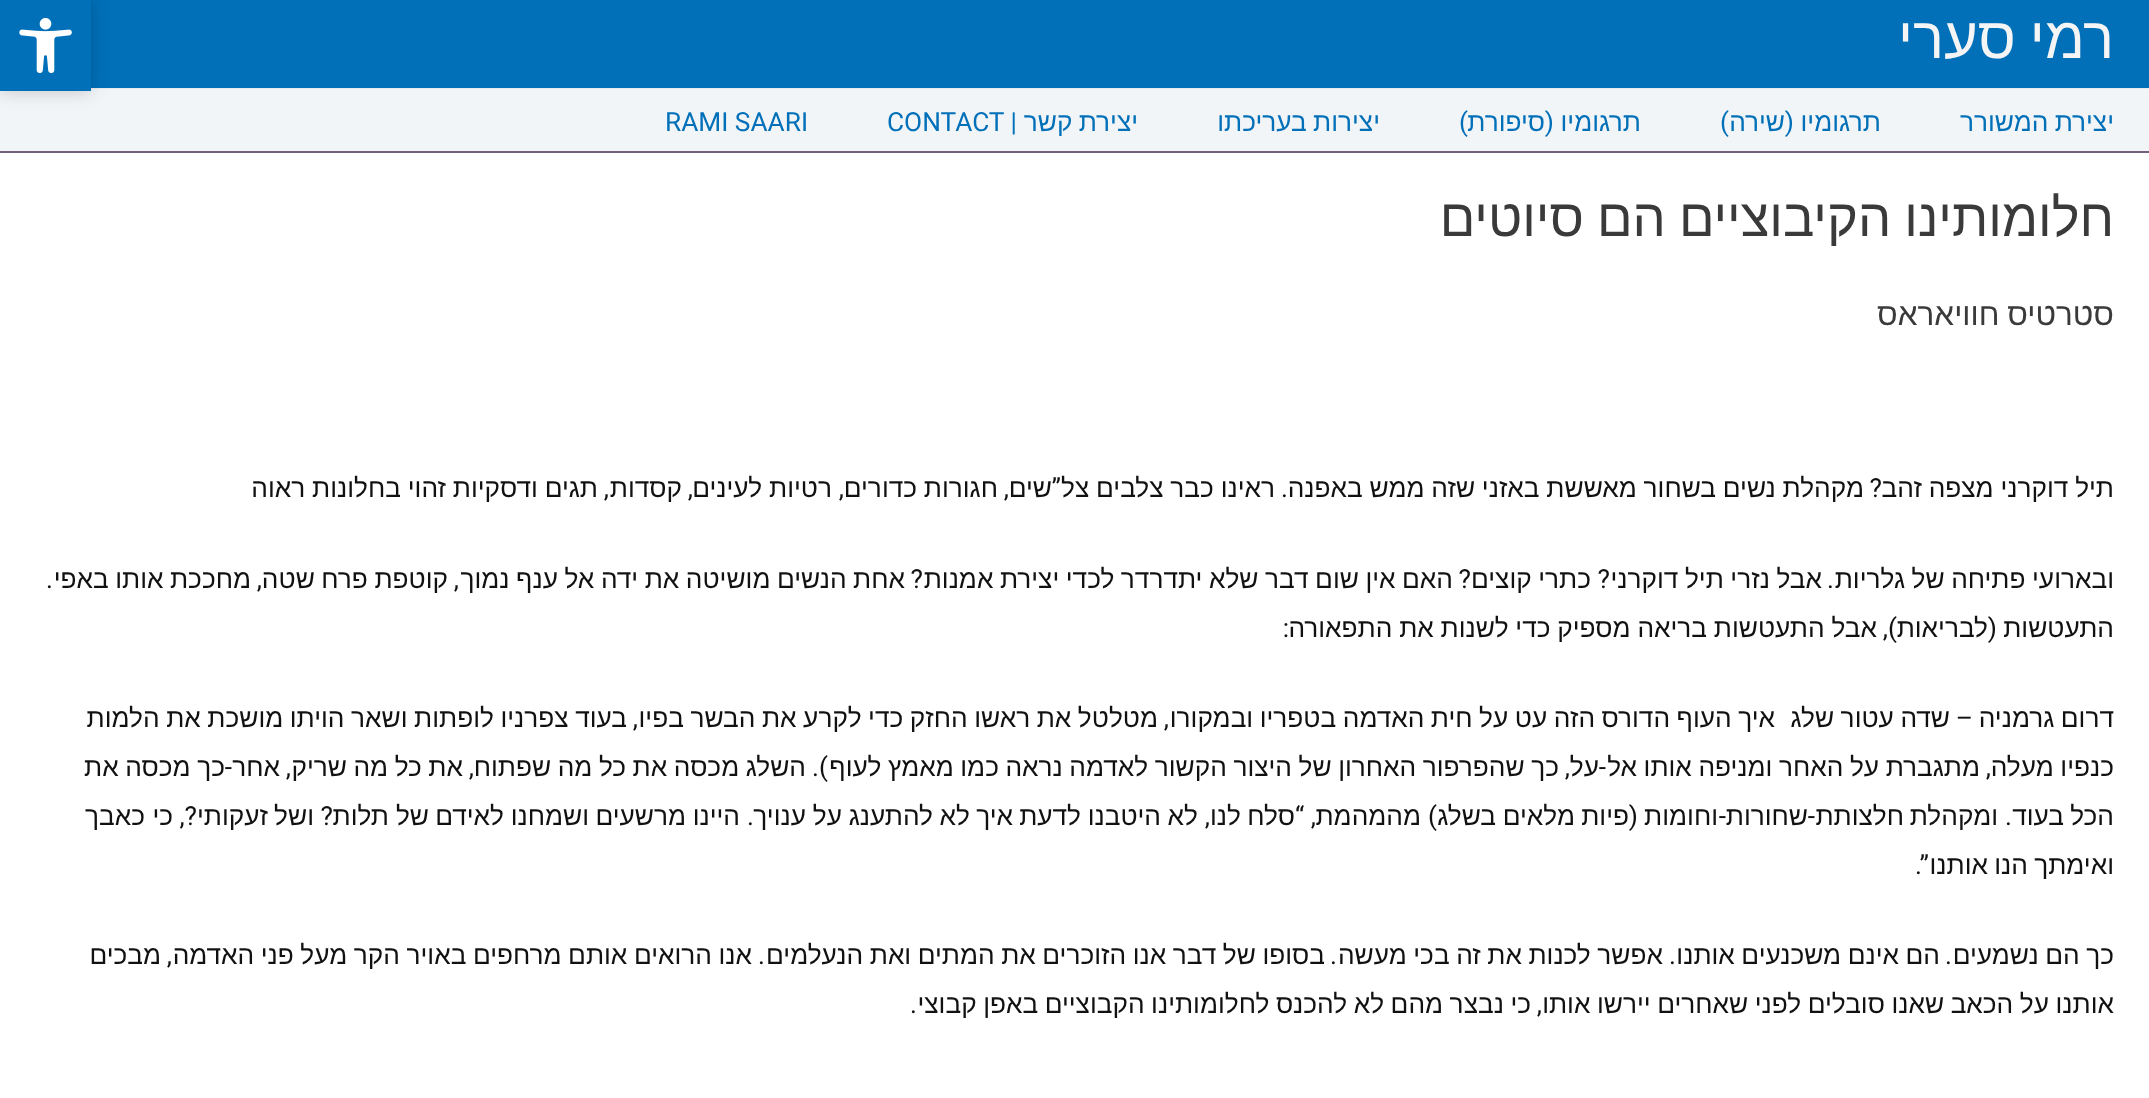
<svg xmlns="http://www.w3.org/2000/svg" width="2149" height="1098">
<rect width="100%" height="100%" fill="#fff"/>
<rect x="91" width="2058" height="88" fill="#0170b9"/>
<rect x="91" y="88" width="2058" height="1" fill="#eaeaea"/>
<rect y="89" width="2149" height="62" fill="#f2f5f7"/>
<rect width="91" height="91" fill="#00000033" filter="blur(9px)"/>
<rect width="91" height="91" fill="#0170b9"/>
<image x="19" y="18" width="53" height="56" href="media/1.png"/>
<text x="2114" y="58" word-spacing="-2" style="font-family:Liberation Sans;font-size:58px;direction:rtl;fill:#f5f5f5">רמי סערי</text>
<rect y="151" width="2149" height="2" fill="#73607a"/>
<text x="2114" y="131" word-spacing="-1" style="font-family:Liberation Sans;font-size:26.25px;direction:rtl;fill:#0170b9">יצירת המשורר</text>
<text x="1881" y="131" style="font-family:Liberation Sans;font-size:26.25px;direction:rtl;fill:#0170b9">תרגומיו</text>
<text x="1794" y="131" style="font-family:Roboto;font-size:26.25px;direction:rtl;fill:#0170b9">(</text>
<text x="1785" y="131" style="font-family:Liberation Sans;font-size:26.25px;direction:rtl;fill:#0170b9">שירה</text>
<text x="1729" y="131" style="font-family:Roboto;font-size:26.25px;direction:rtl;fill:#0170b9">)</text>
<text x="1641" y="131" style="font-family:Liberation Sans;font-size:26.25px;direction:rtl;fill:#0170b9">תרגומיו</text>
<text x="1554" y="131" style="font-family:Roboto;font-size:26.25px;direction:rtl;fill:#0170b9">(</text>
<text x="1545" y="131" style="font-family:Liberation Sans;font-size:26.25px;direction:rtl;fill:#0170b9">סיפורת</text>
<text x="1468" y="131" style="font-family:Roboto;font-size:26.25px;direction:rtl;fill:#0170b9">)</text>
<text x="1380" y="131" word-spacing="-1" style="font-family:Liberation Sans;font-size:26.25px;direction:rtl;fill:#0170b9">יצירות בעריכתו</text>
<text x="1138" y="131" word-spacing="-1" style="font-family:Liberation Sans;font-size:26.25px;direction:rtl;fill:#0170b9">יצירת קשר</text>
<text x="887" y="131" style="font-family:Roboto;font-size:26.25px;fill:#0170b9">CONTACT |</text>
<text x="665" y="131" style="font-family:Roboto;font-size:26.25px;fill:#0170b9">RAMI SAARI</text>
<text x="2114" y="236" word-spacing="-1.5" style="font-family:Liberation Sans;font-size:52.5px;direction:rtl;fill:#3a3a3a">חלומותינו הקיבוציים הם סיוטים</text>
<text x="2114" y="325" word-spacing="-1" style="font-family:Liberation Sans;font-size:31.5px;direction:rtl;fill:#3a3a3a">סטרטיס חוויאראס</text>
<text x="2114" y="497" word-spacing="-0.5" style="font-family:Liberation Sans;font-size:26.25px;direction:rtl;fill:#111">תיל דוקרני מצפה זהב</text>
<text x="1882" y="497" style="font-family:Roboto;font-size:26.25px;direction:rtl;fill:#111">?</text>
<text x="1864" y="497" word-spacing="-0.5" style="font-family:Liberation Sans;font-size:26.25px;direction:rtl;fill:#111">מקהלת נשים בשחור מאששת באזני שזה ממש באפנה</text>
<text x="1288" y="497" style="font-family:Roboto;font-size:26.25px;direction:rtl;fill:#111">.</text>
<text x="1275" y="497" word-spacing="-0.5" style="font-family:Liberation Sans;font-size:26.25px;direction:rtl;fill:#111">ראינו כבר צלבים צל</text>
<text x="1061" y="497" style="font-family:Roboto;font-size:26.25px;direction:rtl;fill:#111">”</text>
<text x="1052" y="497" style="font-family:Liberation Sans;font-size:26.25px;direction:rtl;fill:#111">שים</text>
<text x="1009" y="497" style="font-family:Roboto;font-size:26.25px;direction:rtl;fill:#111">,</text>
<text x="998" y="497" word-spacing="-0.5" style="font-family:Liberation Sans;font-size:26.25px;direction:rtl;fill:#111">חגורות כדורים</text>
<text x="844" y="497" style="font-family:Roboto;font-size:26.25px;direction:rtl;fill:#111">,</text>
<text x="832" y="497" word-spacing="-0.5" style="font-family:Liberation Sans;font-size:26.25px;direction:rtl;fill:#111">רטיות לעינים</text>
<text x="693" y="497" style="font-family:Roboto;font-size:26.25px;direction:rtl;fill:#111">,</text>
<text x="682" y="497" style="font-family:Liberation Sans;font-size:26.25px;direction:rtl;fill:#111">קסדות</text>
<text x="609" y="497" style="font-family:Roboto;font-size:26.25px;direction:rtl;fill:#111">,</text>
<text x="598" y="497" word-spacing="-0.5" style="font-family:Liberation Sans;font-size:26.25px;direction:rtl;fill:#111">תגים ודסקיות זהוי בחלונות ראוה</text>
<text x="2114" y="588" word-spacing="-0.75" style="font-family:Liberation Sans;font-size:26.25px;direction:rtl;fill:#111">ובארועי פתיחה של גלריות</text>
<text x="1834" y="588" style="font-family:Roboto;font-size:26.25px;direction:rtl;fill:#111">.</text>
<text x="1822" y="588" word-spacing="-0.75" style="font-family:Liberation Sans;font-size:26.25px;direction:rtl;fill:#111">אבל נזרי תיל דוקרני</text>
<text x="1610" y="588" style="font-family:Roboto;font-size:26.25px;direction:rtl;fill:#111">?</text>
<text x="1591" y="588" word-spacing="-0.75" style="font-family:Liberation Sans;font-size:26.25px;direction:rtl;fill:#111">כתרי קוצים</text>
<text x="1471" y="588" style="font-family:Roboto;font-size:26.25px;direction:rtl;fill:#111">?</text>
<text x="1453" y="588" word-spacing="-0.75" style="font-family:Liberation Sans;font-size:26.25px;direction:rtl;fill:#111">האם אין שום דבר שלא יתדרדר לכדי יצירת אמנות</text>
<text x="923" y="588" style="font-family:Roboto;font-size:26.25px;direction:rtl;fill:#111">?</text>
<text x="905" y="588" word-spacing="-0.75" style="font-family:Liberation Sans;font-size:26.25px;direction:rtl;fill:#111">אחת הנשים מושיטה את ידה אל ענף נמוך</text>
<text x="459" y="588" style="font-family:Roboto;font-size:26.25px;direction:rtl;fill:#111">,</text>
<text x="448" y="588" word-spacing="-0.75" style="font-family:Liberation Sans;font-size:26.25px;direction:rtl;fill:#111">קוטפת פרח שטה</text>
<text x="262" y="588" style="font-family:Roboto;font-size:26.25px;direction:rtl;fill:#111">,</text>
<text x="251" y="588" word-spacing="-0.75" style="font-family:Liberation Sans;font-size:26.25px;direction:rtl;fill:#111">מחככת אותו באפי</text>
<text x="53" y="588" style="font-family:Roboto;font-size:26.25px;direction:rtl;fill:#111">.</text>
<text x="2114" y="637" style="font-family:Liberation Sans;font-size:26.25px;direction:rtl;fill:#111">התעטשות</text>
<text x="1997" y="637" style="font-family:Roboto;font-size:26.25px;direction:rtl;fill:#111">(</text>
<text x="1988" y="637" style="font-family:Liberation Sans;font-size:26.25px;direction:rtl;fill:#111">לבריאות</text>
<text x="1897" y="637" style="font-family:Roboto;font-size:26.25px;direction:rtl;fill:#111">),</text>
<text x="1877" y="637" word-spacing="-0.5" style="font-family:Liberation Sans;font-size:26.25px;direction:rtl;fill:#111">אבל התעטשות בריאה מספיק כדי לשנות את התפאורה</text>
<text x="1289" y="637" style="font-family:Roboto;font-size:26.25px;direction:rtl;fill:#111">:</text>
<text x="2114" y="727" word-spacing="-0.75" style="font-family:Liberation Sans;font-size:26.25px;direction:rtl;fill:#111">דרום גרמניה</text>
<text x="1973" y="727" style="font-family:Roboto;font-size:26.25px;direction:rtl;fill:#111">–</text>
<text x="1950" y="727" word-spacing="-0.75" style="font-family:Liberation Sans;font-size:26.25px;direction:rtl;fill:#111">שדה עטור שלג</text>
<text x="1775" y="727" word-spacing="-0.75" style="font-family:Liberation Sans;font-size:26.25px;direction:rtl;fill:#111">איך העוף הדורס הזה עט על חית האדמה בטפריו ובמקורו</text>
<text x="1158" y="727" word-spacing="-0.75" style="font-family:Liberation Sans;font-size:26.25px;direction:rtl;fill:#111">מטלטל את ראשו החזק כדי לקרע את הבשר בפיו</text>
<text x="627" y="727" word-spacing="-0.75" style="font-family:Liberation Sans;font-size:26.25px;direction:rtl;fill:#111">בעוד צפרניו לופתות ושאר הויתו מושכת את הלמות</text>
<text x="1169" y="727" style="font-family:Roboto;font-size:26.25px;direction:rtl;fill:#111">,</text>
<text x="638" y="727" style="font-family:Roboto;font-size:26.25px;direction:rtl;fill:#111">,</text>
<text x="2114" y="776" word-spacing="-0.75" style="font-family:Liberation Sans;font-size:26.25px;direction:rtl;fill:#111">כנפיו מעלה</text>
<text x="1980" y="776" word-spacing="-0.75" style="font-family:Liberation Sans;font-size:26.25px;direction:rtl;fill:#111">מתגברת על האחר ומניפה אותו אל</text>
<text x="1606" y="776" style="font-family:Roboto;font-size:26.25px;direction:rtl;fill:#111">-</text>
<text x="1599" y="776" style="font-family:Liberation Sans;font-size:26.25px;direction:rtl;fill:#111">על</text>
<text x="1559" y="776" word-spacing="-0.75" style="font-family:Liberation Sans;font-size:26.25px;direction:rtl;fill:#111">כך שהפרפור האחרון של היצור הקשור לאדמה נראה כמו מאמץ לעוף</text>
<text x="828" y="776" style="font-family:Roboto;font-size:26.25px;direction:rtl;fill:#111">).</text>
<text x="806" y="776" word-spacing="-0.75" style="font-family:Liberation Sans;font-size:26.25px;direction:rtl;fill:#111">השלג מכסה את כל מה שפתוח</text>
<text x="463" y="776" word-spacing="-0.75" style="font-family:Liberation Sans;font-size:26.25px;direction:rtl;fill:#111">את כל מה שריק</text>
<text x="280" y="776" style="font-family:Liberation Sans;font-size:26.25px;direction:rtl;fill:#111">אחר</text>
<text x="232" y="776" style="font-family:Roboto;font-size:26.25px;direction:rtl;fill:#111">-</text>
<text x="225" y="776" word-spacing="-0.75" style="font-family:Liberation Sans;font-size:26.25px;direction:rtl;fill:#111">כך מכסה את</text>
<text x="1991" y="776" style="font-family:Roboto;font-size:26.25px;direction:rtl;fill:#111">,</text>
<text x="1570" y="776" style="font-family:Roboto;font-size:26.25px;direction:rtl;fill:#111">,</text>
<text x="474" y="776" style="font-family:Roboto;font-size:26.25px;direction:rtl;fill:#111">,</text>
<text x="291" y="776" style="font-family:Roboto;font-size:26.25px;direction:rtl;fill:#111">,</text>
<text x="2114" y="825" style="font-family:Liberation Sans;font-size:26.25px;direction:rtl;fill:#111">הכל</text>
<text x="2064" y="825" style="font-family:Liberation Sans;font-size:26.25px;direction:rtl;fill:#111">בעוד</text>
<text x="1998" y="825" style="font-family:Liberation Sans;font-size:26.25px;direction:rtl;fill:#111">ומקהלת</text>
<text x="1904" y="825" style="font-family:Liberation Sans;font-size:26.25px;direction:rtl;fill:#111">חלצותת</text>
<text x="1815" y="825" style="font-family:Roboto;font-size:26.25px;direction:rtl;fill:#111">-</text>
<text x="1808" y="825" style="font-family:Liberation Sans;font-size:26.25px;direction:rtl;fill:#111">שחורות</text>
<text x="1726" y="825" style="font-family:Roboto;font-size:26.25px;direction:rtl;fill:#111">-</text>
<text x="1718" y="825" style="font-family:Liberation Sans;font-size:26.25px;direction:rtl;fill:#111">וחומות</text>
<text x="1638" y="825" style="font-family:Roboto;font-size:26.25px;direction:rtl;fill:#111">(</text>
<text x="1629" y="825" style="font-family:Liberation Sans;font-size:26.25px;direction:rtl;fill:#111">פיות</text>
<text x="1575" y="825" style="font-family:Liberation Sans;font-size:26.25px;direction:rtl;fill:#111">מלאים</text>
<text x="1496" y="825" style="font-family:Liberation Sans;font-size:26.25px;direction:rtl;fill:#111">בשלג</text>
<text x="1437" y="825" style="font-family:Roboto;font-size:26.25px;direction:rtl;fill:#111">)</text>
<text x="1421" y="825" style="font-family:Liberation Sans;font-size:26.25px;direction:rtl;fill:#111">מהמהמת</text>
<text x="1316" y="825" style="font-family:Roboto;font-size:26.25px;direction:rtl;fill:#111">, “</text>
<text x="1295" y="825" style="font-family:Liberation Sans;font-size:26.25px;direction:rtl;fill:#111">סלח</text>
<text x="1241" y="825" style="font-family:Liberation Sans;font-size:26.25px;direction:rtl;fill:#111">לנו</text>
<text x="1198" y="825" style="font-family:Liberation Sans;font-size:26.25px;direction:rtl;fill:#111">לא</text>
<text x="1161" y="825" style="font-family:Liberation Sans;font-size:26.25px;direction:rtl;fill:#111">היטבנו</text>
<text x="1081" y="825" style="font-family:Liberation Sans;font-size:26.25px;direction:rtl;fill:#111">לדעת</text>
<text x="1013" y="825" style="font-family:Liberation Sans;font-size:26.25px;direction:rtl;fill:#111">איך</text>
<text x="970" y="825" style="font-family:Liberation Sans;font-size:26.25px;direction:rtl;fill:#111">לא</text>
<text x="933" y="825" style="font-family:Liberation Sans;font-size:26.25px;direction:rtl;fill:#111">להתענג</text>
<text x="842" y="825" style="font-family:Liberation Sans;font-size:26.25px;direction:rtl;fill:#111">על</text>
<text x="806" y="825" style="font-family:Liberation Sans;font-size:26.25px;direction:rtl;fill:#111">ענויך</text>
<text x="740" y="825" style="font-family:Liberation Sans;font-size:26.25px;direction:rtl;fill:#111">היינו</text>
<text x="686" y="825" style="font-family:Liberation Sans;font-size:26.25px;direction:rtl;fill:#111">מרשעים</text>
<text x="589" y="825" style="font-family:Liberation Sans;font-size:26.25px;direction:rtl;fill:#111">ושמחנו</text>
<text x="504" y="825" style="font-family:Liberation Sans;font-size:26.25px;direction:rtl;fill:#111">לאידם</text>
<text x="429" y="825" style="font-family:Liberation Sans;font-size:26.25px;direction:rtl;fill:#111">של</text>
<text x="389" y="825" style="font-family:Liberation Sans;font-size:26.25px;direction:rtl;fill:#111">תלות</text>
<text x="333" y="825" style="font-family:Roboto;font-size:26.25px;direction:rtl;fill:#111">?</text>
<text x="314" y="825" style="font-family:Liberation Sans;font-size:26.25px;direction:rtl;fill:#111">ושל</text>
<text x="268" y="825" style="font-family:Liberation Sans;font-size:26.25px;direction:rtl;fill:#111">זעקותי</text>
<text x="197" y="825" style="font-family:Roboto;font-size:26.25px;direction:rtl;fill:#111">?,</text>
<text x="173" y="825" style="font-family:Liberation Sans;font-size:26.25px;direction:rtl;fill:#111">כי</text>
<text x="145" y="825" style="font-family:Liberation Sans;font-size:26.25px;direction:rtl;fill:#111">כאבך</text>
<text x="2012" y="825" style="font-family:Roboto;font-size:26.25px;direction:rtl;fill:#111">.</text>
<text x="1210" y="825" style="font-family:Roboto;font-size:26.25px;direction:rtl;fill:#111">,</text>
<text x="754" y="825" style="font-family:Roboto;font-size:26.25px;direction:rtl;fill:#111">.</text>
<text x="2114" y="874" word-spacing="-1" style="font-family:Liberation Sans;font-size:26.25px;direction:rtl;fill:#111">ואימתך הנו אותנו</text>
<text x="1929" y="874" style="font-family:Roboto;font-size:26.25px;direction:rtl;fill:#111">”.</text>
<text x="2114" y="964" word-spacing="-0.75" style="font-family:Liberation Sans;font-size:26.25px;direction:rtl;fill:#111">כך הם נשמעים</text>
<text x="1952" y="964" style="font-family:Roboto;font-size:26.25px;direction:rtl;fill:#111">.</text>
<text x="1940" y="964" word-spacing="-0.75" style="font-family:Liberation Sans;font-size:26.25px;direction:rtl;fill:#111">הם אינם משכנעים אותנו</text>
<text x="1676" y="964" style="font-family:Roboto;font-size:26.25px;direction:rtl;fill:#111">.</text>
<text x="1663" y="964" word-spacing="-0.75" style="font-family:Liberation Sans;font-size:26.25px;direction:rtl;fill:#111">אפשר לכנות את זה בכי מעשה</text>
<text x="1337" y="964" style="font-family:Roboto;font-size:26.25px;direction:rtl;fill:#111">.</text>
<text x="1325" y="964" word-spacing="-0.75" style="font-family:Liberation Sans;font-size:26.25px;direction:rtl;fill:#111">בסופו של דבר אנו הזוכרים את המתים ואת הנעלמים</text>
<text x="765" y="964" style="font-family:Roboto;font-size:26.25px;direction:rtl;fill:#111">.</text>
<text x="752" y="964" word-spacing="-0.75" style="font-family:Liberation Sans;font-size:26.25px;direction:rtl;fill:#111">אנו הרואים אותם מרחפים באויר הקר מעל פני האדמה</text>
<text x="172" y="964" style="font-family:Roboto;font-size:26.25px;direction:rtl;fill:#111">,</text>
<text x="161" y="964" style="font-family:Liberation Sans;font-size:26.25px;direction:rtl;fill:#111">מבכים</text>
<text x="2114" y="1013" word-spacing="-0.75" style="font-family:Liberation Sans;font-size:26.25px;direction:rtl;fill:#111">אותנו על הכאב שאנו סובלים לפני שאחרים יירשו אותו</text>
<text x="1542" y="1013" style="font-family:Roboto;font-size:26.25px;direction:rtl;fill:#111">,</text>
<text x="1531" y="1013" word-spacing="-0.75" style="font-family:Liberation Sans;font-size:26.25px;direction:rtl;fill:#111">כי נבצר מהם לא להכנס לחלומותינו הקבוציים באפן קבוצי</text>
<text x="917" y="1013" style="font-family:Roboto;font-size:26.25px;direction:rtl;fill:#111">.</text>
</svg>
